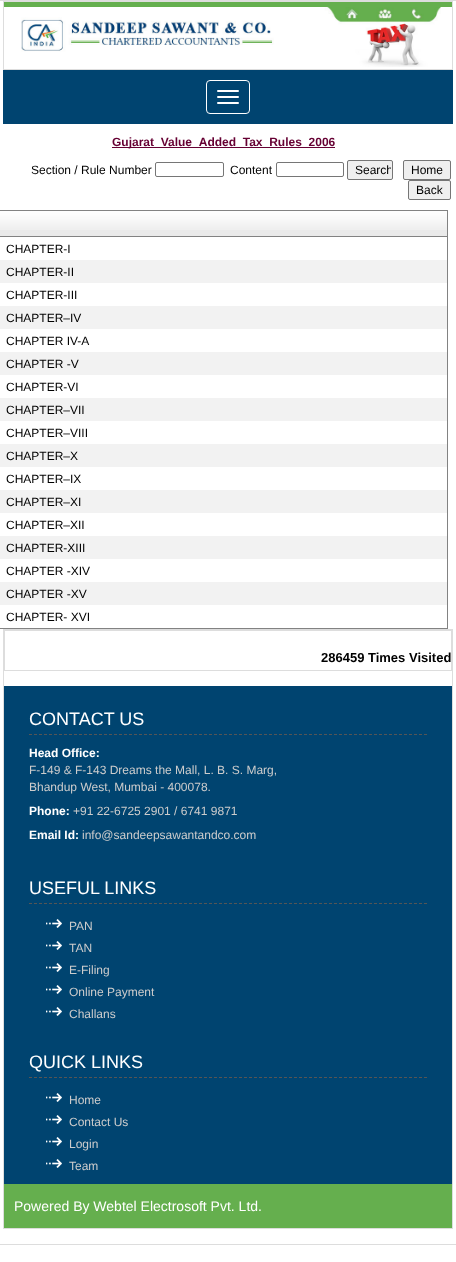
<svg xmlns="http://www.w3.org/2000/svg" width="456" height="1262">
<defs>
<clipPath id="clip1"><rect x="349" y="162" width="42" height="16"/></clipPath>
</defs>
<rect width="100%" height="100%" fill="#fff"/>
<rect x="-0.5" y="0.5" width="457" height="1244" fill="none" stroke="#ddd"/>
<rect x="3" y="1" width="450" height="1" fill="#ddd"/>
<rect x="452" y="1" width="1" height="69" fill="#ddd"/>
<rect x="3" y="69" width="450" height="1" fill="#ddd"/>
<rect x="3" y="1" width="1" height="69" fill="#ddd"/>
<rect x="4" y="2" width="448" height="5" fill="#65af4e"/>
<image x="21" y="7" width="420" height="60" href="media/1.png"/>
<rect x="3" y="70" width="450" height="54" fill="#004470"/>
<rect x="206.5" y="80.5" width="43" height="33" rx="3.5" fill="none" stroke="#fff"/>
<rect x="217" y="90" width="22" height="2" rx="1" fill="#fff"/>
<rect x="217" y="96" width="22" height="2" rx="1" fill="#fff"/>
<rect x="217" y="102" width="22" height="2" rx="1" fill="#fff"/>
<rect x="112" y="147" width="223" height="1" fill="#603"/>
<text x="112" y="146" style="font-family:Liberation Sans;font-size:12px;font-weight:bold;fill:#603">Gujarat_Value_Added_Tax_Rules_2006</text>
<text x="31" y="174" style="font-family:Liberation Sans;font-size:12px;fill:#000">Section / Rule Number</text>
<rect x="155.5" y="162.5" width="68" height="14" rx="1.5" fill="none" stroke="#767676"/>
<text x="230" y="174" style="font-family:Liberation Sans;font-size:12px;fill:#000">Content</text>
<rect x="276.5" y="162.5" width="67" height="14" rx="1.5" fill="none" stroke="#767676"/>
<rect x="347.5" y="160.5" width="45" height="19" rx="1.5" fill="#efefef" stroke="#767676"/>
<g clip-path="url(#clip1)">
<text x="355" y="174" style="font-family:Liberation Sans;font-size:12px;fill:#000">Search</text>
</g>
<rect x="403.5" y="160.5" width="47" height="19" rx="1.5" fill="#efefef" stroke="#767676"/>
<text x="411" y="174" style="font-family:Liberation Sans;font-size:12px;fill:#000">Home</text>
<rect x="408.5" y="180.5" width="42" height="19" rx="1.5" fill="#efefef" stroke="#767676"/>
<text x="416" y="194" style="font-family:Liberation Sans;font-size:12px;fill:#000">Back</text>
<rect x="-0.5" y="210.5" width="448" height="418" fill="none" stroke="#828282"/>
<rect y="230" width="447" height="6" fill="#eaeaea"/>
<image x="0" y="211" width="447" height="19" href="media/2.png"/>
<rect y="236" width="447" height="1" fill="#828282"/>
<text x="6" y="253" style="font-family:Liberation Sans;font-size:12px;fill:#000">CHAPTER-I</text>
<rect y="260" width="447" height="23" fill="#f2f2f2"/>
<text x="6" y="276" style="font-family:Liberation Sans;font-size:12px;fill:#000">CHAPTER-II</text>
<text x="6" y="299" style="font-family:Liberation Sans;font-size:12px;fill:#000">CHAPTER-III</text>
<rect y="306" width="447" height="23" fill="#f2f2f2"/>
<text x="6" y="322" style="font-family:Liberation Sans;font-size:12px;fill:#000">CHAPTER–IV</text>
<text x="6" y="345" style="font-family:Liberation Sans;font-size:12px;fill:#000">CHAPTER IV-A</text>
<rect y="352" width="447" height="23" fill="#f2f2f2"/>
<text x="6" y="368" style="font-family:Liberation Sans;font-size:12px;fill:#000">CHAPTER -V</text>
<text x="6" y="391" style="font-family:Liberation Sans;font-size:12px;fill:#000">CHAPTER-VI</text>
<rect y="398" width="447" height="23" fill="#f2f2f2"/>
<text x="6" y="414" style="font-family:Liberation Sans;font-size:12px;fill:#000">CHAPTER–VII</text>
<text x="6" y="437" style="font-family:Liberation Sans;font-size:12px;fill:#000">CHAPTER–VIII</text>
<rect y="444" width="447" height="23" fill="#f2f2f2"/>
<text x="6" y="460" style="font-family:Liberation Sans;font-size:12px;fill:#000">CHAPTER–X</text>
<text x="6" y="483" style="font-family:Liberation Sans;font-size:12px;fill:#000">CHAPTER–IX</text>
<rect y="490" width="447" height="23" fill="#f2f2f2"/>
<text x="6" y="506" style="font-family:Liberation Sans;font-size:12px;fill:#000">CHAPTER–XI</text>
<text x="6" y="529" style="font-family:Liberation Sans;font-size:12px;fill:#000">CHAPTER–XII</text>
<rect y="536" width="447" height="23" fill="#f2f2f2"/>
<text x="6" y="552" style="font-family:Liberation Sans;font-size:12px;fill:#000">CHAPTER-XIII</text>
<text x="6" y="575" style="font-family:Liberation Sans;font-size:12px;fill:#000">CHAPTER -XIV</text>
<rect y="582" width="447" height="23" fill="#f2f2f2"/>
<text x="6" y="598" style="font-family:Liberation Sans;font-size:12px;fill:#000">CHAPTER -XV</text>
<text x="6" y="621" style="font-family:Liberation Sans;font-size:12px;fill:#000">CHAPTER- XVI</text>
<rect x="3" y="629" width="450" height="1" fill="#ddd"/>
<rect x="452" y="629" width="1" height="600" fill="#ddd"/>
<rect x="3" y="1228" width="450" height="1" fill="#ddd"/>
<rect x="3" y="629" width="1" height="600" fill="#ddd"/>
<rect x="4" y="630" width="448" height="1" fill="#ddd"/>
<rect x="451" y="630" width="1" height="41" fill="#ddd"/>
<rect x="4" y="670" width="448" height="1" fill="#ddd"/>
<rect x="4" y="630" width="1" height="41" fill="#ddd"/>
<text x="321" y="662" style="font-family:Liberation Sans;font-size:13px;font-weight:bold;fill:#000">286459 Times Visited</text>
<rect x="4" y="686" width="448" height="498" fill="#004470"/>
<path d="M29 734.5h398" fill="none" stroke="#555" stroke-dasharray="3 2"/>
<text x="29" y="725" style="font-family:Liberation Sans;font-size:18px;fill:#fff">CONTACT US</text>
<text x="29" y="757" style="font-family:Liberation Sans;font-size:12px;font-weight:bold;fill:#fff">Head Office:</text>
<text x="29" y="774" style="font-family:Liberation Sans;font-size:12px;fill:#ccc">F-149 &amp; F-143 Dreams the Mall, L. B. S. Marg,</text>
<text x="29" y="791" style="font-family:Liberation Sans;font-size:12px;fill:#ccc">Bhandup West, Mumbai - 400078.</text>
<text x="29" y="815" style="font-family:Liberation Sans;font-size:12px;font-weight:bold;fill:#fff">Phone:</text>
<text x="73" y="815" style="font-family:Liberation Sans;font-size:12px;fill:#ccc">+91 22-6725 2901 / 6741 9871</text>
<text x="29" y="839" style="font-family:Liberation Sans;font-size:12px;font-weight:bold;fill:#fff">Email Id:</text>
<text x="82" y="839" style="font-family:Liberation Sans;font-size:12px;fill:#ccc">info@sandeepsawantandco.com</text>
<path d="M29 903.5h398" fill="none" stroke="#555" stroke-dasharray="3 2"/>
<text x="29" y="894" style="font-family:Liberation Sans;font-size:18px;fill:#fff">USEFUL LINKS</text>
<image x="46" y="919" width="16" height="9" href="media/3.png"/>
<text x="69" y="930" style="font-family:Liberation Sans;font-size:12px;fill:#ccc">PAN</text>
<image x="46" y="941" width="16" height="9" href="media/3.png"/>
<text x="69" y="952" style="font-family:Liberation Sans;font-size:12px;fill:#ccc">TAN</text>
<image x="46" y="963" width="16" height="9" href="media/3.png"/>
<text x="69" y="974" style="font-family:Liberation Sans;font-size:12px;fill:#ccc">E-Filing</text>
<image x="46" y="985" width="16" height="9" href="media/3.png"/>
<text x="69" y="996" style="font-family:Liberation Sans;font-size:12px;fill:#ccc">Online Payment</text>
<image x="46" y="1007" width="16" height="9" href="media/3.png"/>
<text x="69" y="1018" style="font-family:Liberation Sans;font-size:12px;fill:#ccc">Challans</text>
<path d="M29 1077.5h398" fill="none" stroke="#555" stroke-dasharray="3 2"/>
<text x="29" y="1068" style="font-family:Liberation Sans;font-size:18px;fill:#fff">QUICK LINKS</text>
<image x="46" y="1093" width="16" height="9" href="media/3.png"/>
<text x="69" y="1104" style="font-family:Liberation Sans;font-size:12px;fill:#ccc">Home</text>
<image x="46" y="1115" width="16" height="9" href="media/3.png"/>
<text x="69" y="1126" style="font-family:Liberation Sans;font-size:12px;fill:#ccc">Contact Us</text>
<image x="46" y="1137" width="16" height="9" href="media/3.png"/>
<text x="69" y="1148" style="font-family:Liberation Sans;font-size:12px;fill:#ccc">Login</text>
<image x="46" y="1159" width="16" height="9" href="media/3.png"/>
<text x="69" y="1170" style="font-family:Liberation Sans;font-size:12px;fill:#ccc">Team</text>
<rect x="4" y="1184" width="448" height="44" fill="#65af4e"/>
<text x="14" y="1211" style="font-family:Liberation Sans;font-size:14px;fill:#fff">Powered By Webtel Electrosoft Pvt. Ltd.</text>
</svg>
